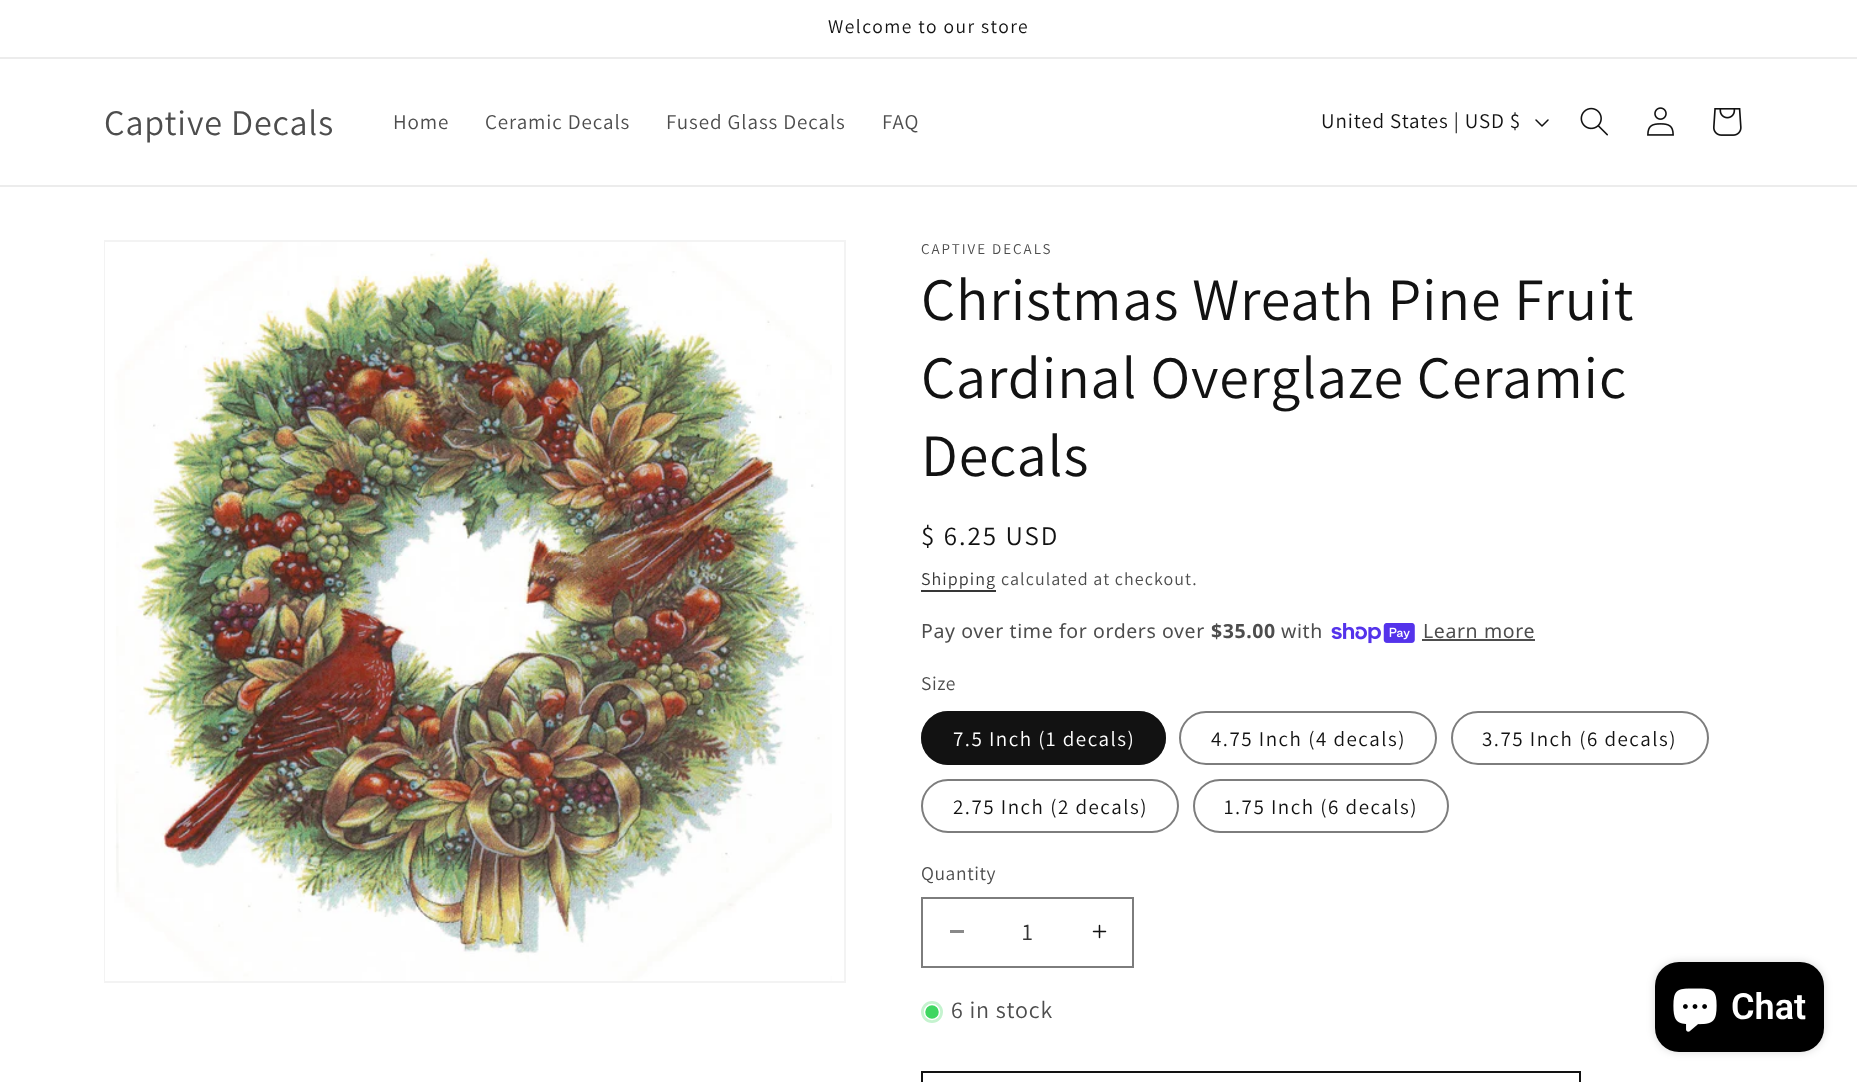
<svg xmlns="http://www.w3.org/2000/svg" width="1857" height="1082">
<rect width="100%" height="100%" fill="#fff"/>
<rect y="57" width="1857" height="2" fill="#ececec"/>
<text x="828" y="33" style="font-family:Assistant;font-size:19.5px;letter-spacing:1.5px;fill:#121212">Welcome to our store</text>
<rect y="185" width="1857" height="2" fill="#ececec"/>
<text x="104" y="135" style="font-family:Assistant;font-size:36px;letter-spacing:0.9px;fill:#4d4d4d">Captive Decals</text>
<text x="393" y="129" style="font-family:Assistant;font-size:21px;letter-spacing:0.9px;fill:#4d4d4d">Home</text>
<text x="485" y="129" style="font-family:Assistant;font-size:21px;letter-spacing:0.9px;fill:#4d4d4d">Ceramic Decals</text>
<text x="666" y="129" style="font-family:Assistant;font-size:21px;letter-spacing:0.9px;fill:#4d4d4d">Fused Glass Decals</text>
<text x="882" y="129" style="font-family:Assistant;font-size:21px;letter-spacing:0.9px;fill:#4d4d4d">FAQ</text>
<text x="1321" y="128" style="font-family:Assistant;font-size:21px;letter-spacing:0.9px;fill:#121212">United States | USD $</text>
<image x="1535" y="119" width="14" height="8" href="media/1.png"/>
<image x="1580" y="107" width="28" height="29" href="media/2.png"/>
<image x="1647" y="107" width="27" height="29" href="media/3.png"/>
<image x="1713" y="108" width="29" height="28" href="media/4.png"/>
<rect x="105" y="241" width="740" height="741" fill="none" stroke="#f3f3f3" stroke-width="2"/>
<image x="105" y="242" width="727" height="739" href="media/5.png"/>
<text x="921" y="254" style="font-family:Assistant;font-size:15px;letter-spacing:2px;fill:#4d4d4d">CAPTIVE DECALS</text>
<text x="921" y="320" style="font-family:Assistant;font-size:60px;letter-spacing:0.9px;fill:#121212">Christmas Wreath Pine Fruit</text>
<text x="921" y="398" style="font-family:Assistant;font-size:60px;letter-spacing:0.9px;fill:#121212">Cardinal Overglaze Ceramic</text>
<text x="921" y="476" style="font-family:Assistant;font-size:60px;letter-spacing:0.9px;fill:#121212">Decals</text>
<text x="921" y="545" style="font-family:Assistant;font-size:27px;letter-spacing:2px;fill:#121212">$ 6.25 USD</text>
<text x="921" y="585" style="font-family:Assistant;font-size:18px;letter-spacing:1.05px;fill:#363636">Shipping</text>
<rect x="921" y="590" width="75" height="2" fill="#363636"/>
<text x="1001" y="585" style="font-family:Assistant;font-size:18px;letter-spacing:1.05px;fill:#4d4d4d">calculated at checkout.</text>
<text x="921" y="638" style="font-family:Noto Sans;font-size:19.5px;letter-spacing:0.6px;fill:#4d4d4d">Pay over time for orders over</text>
<text x="1211" y="638" style="font-family:Noto Sans;font-size:19.5px;font-weight:bold;letter-spacing:0.6px;fill:#4d4d4d">$35.00</text>
<text x="1281" y="638" style="font-family:Noto Sans;font-size:19.5px;letter-spacing:0.6px;fill:#4d4d4d">with</text>
<image x="1331" y="623" width="84" height="21" href="media/6.png"/>
<text x="1423" y="638" style="font-family:Noto Sans;font-size:19.5px;letter-spacing:0.6px;fill:#4d4d4d">Learn more</text>
<rect x="1422" y="639" width="113" height="2" fill="#4d4d4d"/>
<text x="921" y="690" style="font-family:Assistant;font-size:19.5px;letter-spacing:0.6px;fill:#4d4d4d">Size</text>
<rect x="921" y="711" width="245" height="54" rx="27" fill="#121212"/>
<rect x="922" y="712" width="243" height="52" rx="26" fill="none" stroke="#1212128c" stroke-width="2"/>
<text x="953" y="746" style="font-family:Assistant;font-size:21px;letter-spacing:1.5px;fill:#fff">7.5 Inch (1 decals)</text>
<rect x="1180" y="712" width="256" height="52" rx="26" fill="none" stroke="#7d7d7d" stroke-width="2"/>
<text x="1211" y="746" style="font-family:Assistant;font-size:21px;letter-spacing:1.5px;fill:#121212">4.75 Inch (4 decals)</text>
<rect x="1452" y="712" width="256" height="52" rx="26" fill="none" stroke="#7d7d7d" stroke-width="2"/>
<text x="1482" y="746" style="font-family:Assistant;font-size:21px;letter-spacing:1.5px;fill:#121212">3.75 Inch (6 decals)</text>
<rect x="922" y="780" width="256" height="52" rx="26" fill="none" stroke="#7d7d7d" stroke-width="2"/>
<text x="953" y="814" style="font-family:Assistant;font-size:21px;letter-spacing:1.5px;fill:#121212">2.75 Inch (2 decals)</text>
<rect x="1194" y="780" width="254" height="52" rx="26" fill="none" stroke="#7d7d7d" stroke-width="2"/>
<text x="1224" y="814" style="font-family:Assistant;font-size:21px;letter-spacing:1.5px;fill:#121212">1.75 Inch (6 decals)</text>
<text x="921" y="880" style="font-family:Assistant;font-size:19.5px;letter-spacing:0.6px;fill:#4d4d4d">Quantity</text>
<rect x="950" y="930" width="14" height="3" fill="#898989"/>
<image x="1092" y="924" width="15" height="15" href="media/7.png"/>
<rect x="922" y="898" width="211" height="69" fill="none" stroke="#7d7d7d" stroke-width="2"/>
<text x="1022" y="940" style="font-family:Assistant;font-size:24px;fill:#363636">1</text>
<circle cx="932" cy="1012" r="11" fill="#c5f3cf"/>
<circle cx="932" cy="1012" r="7.5" fill="#3ed660" stroke="#fff" stroke-width="1.5"/>
<text x="951" y="1018" style="font-family:Assistant;font-size:24px;letter-spacing:0.9px;fill:#4d4d4d">6 in stock</text>
<rect x="922" y="1072" width="658" height="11" fill="none" stroke="#121212" stroke-width="2"/>
<rect x="1655" y="962" width="169" height="90" rx="24" fill="#00000026" filter="blur(4px)"/>
<rect x="1655" y="962" width="169" height="90" rx="24" fill="#000"/>
<image x="1673" y="988" width="44" height="44" href="media/8.png"/>
<text x="1731" y="1019" style="font-family:Roboto;font-size:36px;font-weight:600;fill:#fff">Chat</text>
</svg>
